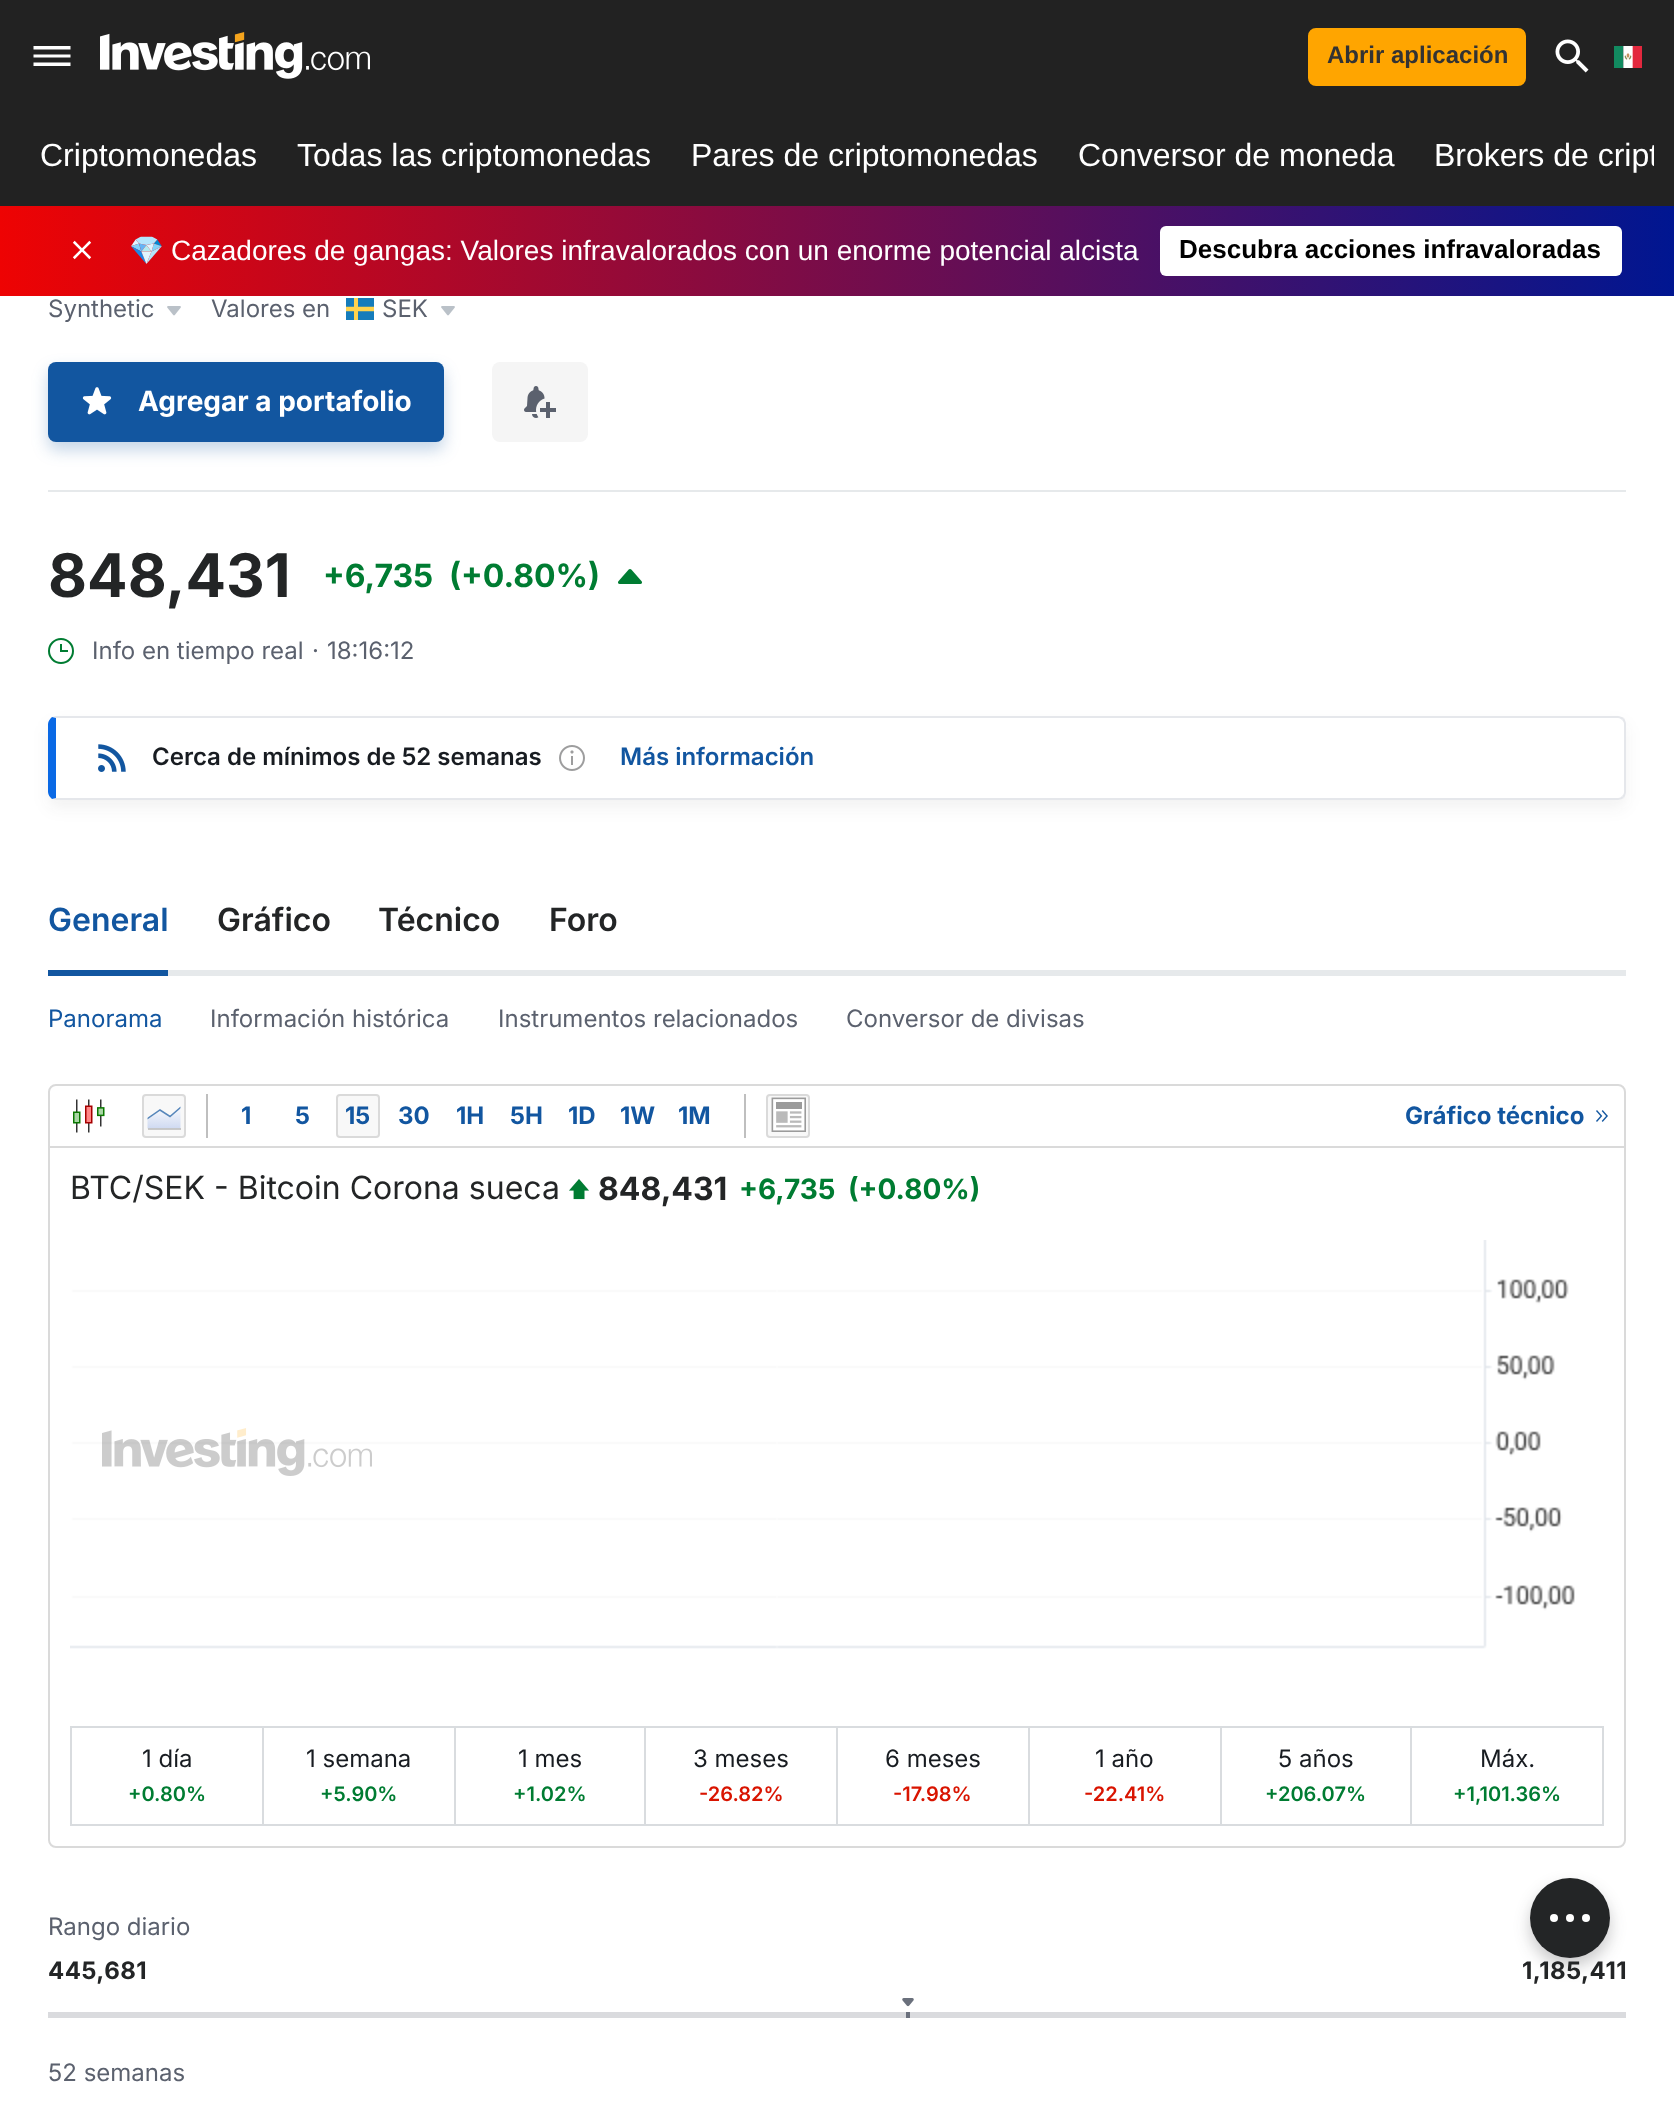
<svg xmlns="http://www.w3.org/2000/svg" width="1674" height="2101">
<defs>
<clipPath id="clip1"><rect x="20" y="112" width="1634" height="94"/></clipPath>
<linearGradient id="g1" gradientUnits="userSpaceOnUse" x1="-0.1" y1="252" x2="1674" y2="250"><stop offset="0" stop-color="#ee0303"/><stop offset="1" stop-color="#001691"/></linearGradient>
<clipPath id="clip2"><path d="M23 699h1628v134h-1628zm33 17h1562c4.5 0 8 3.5 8 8v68c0 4.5-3.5 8-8 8h-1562c-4.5 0-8-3.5-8-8v-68c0-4.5 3.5-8 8-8z" clip-rule="evenodd"/></clipPath>
<linearGradient id="g2" gradientUnits="userSpaceOnUse" x1="164" y1="1104" x2="164" y2="1129"><stop offset="0" stop-color="#fff"/><stop offset="1" stop-color="#ced9f1"/></linearGradient>
<clipPath id="clip3"><path d="M147.5 1106h33v24h-33z"/></clipPath>
</defs>
<rect width="100%" height="100%" fill="#fff"/>
<rect width="1674" height="206" fill="#222"/>
<path d="M33.5 66h37v-3.5h-37zm0-8.5h37v-3h-37zm0-11.5v3.5h37v-3.5z" fill="#fff" fill-rule="evenodd"/>
<image x="100" y="32" width="270" height="47" href="media/1.png"/>
<rect x="1309" y="29" width="216" height="56" rx="7" fill="#ffa500" stroke="#ffa500" stroke-width="2"/>
<text x="1327" y="63" style="font-family:Liberation Sans;font-size:24px;font-weight:bold;fill:#333">Abrir aplicación</text>
<image x="1555" y="39" width="34" height="34" href="media/2.png"/>
<image x="1614" y="46" width="28" height="22" href="media/3.png"/>
<text x="40" y="166" style="font-family:Liberation Sans;font-size:32px;fill:#fff">Criptomonedas</text>
<text x="297" y="166" style="font-family:Liberation Sans;font-size:32px;fill:#fff">Todas las criptomonedas</text>
<text x="691" y="166" style="font-family:Liberation Sans;font-size:32px;fill:#fff">Pares de criptomonedas</text>
<text x="1078" y="166" style="font-family:Liberation Sans;font-size:32px;fill:#fff">Conversor de moneda</text>
<g clip-path="url(#clip1)">
<text x="1434" y="166" style="font-family:Liberation Sans;font-size:32px;fill:#fff">Brokers de cript</text>
</g>
<rect y="206" width="1674" height="90" fill="url(#g1)"/>
<image x="72" y="240" width="20" height="20" href="media/4.png"/>
<text x="129" y="260" style="font-family:Noto Color Emoji;font-size:28px;fill:#fff">💎</text>
<text x="171" y="260" style="font-family:Liberation Sans;font-size:28px;fill:#fff">Cazadores de gangas: Valores infravalorados con un enorme potencial alcista</text>
<rect x="1160" y="226" width="462" height="50" rx="6" fill="#fff"/>
<text x="1179" y="258" style="font-family:Liberation Sans;font-size:26px;font-weight:bold;fill:#000">Descubra acciones infravaloradas</text>
<text x="48" y="317" style="font-family:Inter;font-size:24px;fill:#5b616e">Synthetic</text>
<image x="167" y="306" width="14" height="10" href="media/5.png"/>
<text x="211" y="317" style="font-family:Inter;font-size:24px;fill:#5b616e">Valores en</text>
<image x="346" y="298" width="28" height="22" href="media/6.png"/>
<text x="382" y="317" style="font-family:Inter;font-size:24px;fill:#5b616e">SEK</text>
<image x="441" y="306" width="14" height="10" href="media/5.png"/>
<rect x="48" y="370" width="396" height="80" rx="8" fill="#1256a040" filter="blur(8px)"/>
<rect x="48" y="362" width="396" height="80" rx="8" fill="#1256a0"/>
<image x="82" y="387" width="30" height="28" href="media/7.png"/>
<text x="138" y="411" style="font-family:Inter;font-size:28px;font-weight:bold;fill:#fff">Agregar a portafolio</text>
<rect x="492" y="362" width="96" height="80" rx="8" fill="#f5f5f5"/>
<image x="524" y="386" width="32" height="32" href="media/8.png"/>
<rect x="48" y="490" width="1578" height="2" fill="#e6e9eb"/>
<text x="48" y="597" style="font-family:Inter;font-size:60px;font-weight:bold;fill:#232526">848,431</text>
<text x="323" y="587" style="font-family:Inter;font-size:32px;font-weight:bold;fill:#007c32">+6,735</text>
<text x="449" y="587" style="font-family:Inter;font-size:32px;font-weight:bold;fill:#007c32">(+0.80%)</text>
<image x="618" y="569" width="24" height="15" href="media/9.png"/>
<image x="48" y="638" width="26" height="26" href="media/10.png"/>
<text x="92" y="659" style="font-family:Inter;font-size:24px;fill:#5b616e">Info en tiempo real</text>
<text x="312" y="659" style="font-family:Inter;font-size:24px;fill:#5b616e">·</text>
<text x="327" y="659" style="font-family:Inter;font-size:24px;fill:#5b616e">18:16:12</text>
<g clip-path="url(#clip2)">
<rect x="48" y="724" width="1578" height="84" rx="8" fill="#2325260f" filter="blur(8px)"/>
</g>
<path d="M56 716l-4 1l4 1h1562c2 0 3 1 4 2l2-2c-2-1-4-2-6-2z" fill="#e5e7eb"/>
<path d="M1626 792v-68c0-2-1-4-2-6l-2 2c1 1 2 2 2 4v68c0 2-1 3-2 4l2 2c1-2 2-4 2-6z" fill="#e5e7eb"/>
<path d="M56 800h1562c2 0 4-1 6-2l-2-2c-1 1-2 2-4 2h-1562l-4 1z" fill="#e5e7eb"/>
<path d="M56 718l-4-1c-2 2-4 4-4 7v68c0 3 2 5 4 7l4-1z" fill="#0a69e5"/>
<image x="98" y="744" width="28" height="28" href="media/11.png"/>
<text x="152" y="765" style="font-family:Inter;font-size:24px;font-weight:600;fill:#181c21">Cerca de mínimos de 52 semanas</text>
<image x="559" y="745" width="26" height="26" href="media/12.png"/>
<text x="620" y="765" style="font-family:Inter;font-size:24px;font-weight:600;fill:#1256a0">Más información</text>
<rect x="168" y="970" width="1458" height="6" fill="#e6e9eb"/>
<rect x="48" y="970" width="120" height="6" fill="#1256a0"/>
<text x="48" y="931" style="font-family:Inter;font-size:32px;font-weight:600;fill:#1256a0">General</text>
<text x="217" y="931" style="font-family:Inter;font-size:32px;font-weight:600;fill:#232526">Gráfico</text>
<text x="378" y="931" style="font-family:Inter;font-size:32px;font-weight:600;fill:#232526">Técnico</text>
<text x="549" y="931" style="font-family:Inter;font-size:32px;font-weight:600;fill:#232526">Foro</text>
<text x="48" y="1027" style="font-family:Inter;font-size:24px;fill:#1256a0">Panorama</text>
<text x="210" y="1027" style="font-family:Inter;font-size:24px;fill:#5b616e">Información histórica</text>
<text x="498" y="1027" style="font-family:Inter;font-size:24px;fill:#5b616e">Instrumentos relacionados</text>
<text x="846" y="1027" style="font-family:Inter;font-size:24px;fill:#5b616e">Conversor de divisas</text>
<rect x="49" y="1085" width="1576" height="762" rx="7" fill="none" stroke="#dadada" stroke-width="2"/>
<rect x="50" y="1146" width="1574" height="2" fill="#dadada"/>
<image x="73" y="1099" width="32" height="34" href="media/13.png"/>
<rect x="143" y="1095" width="42" height="42" rx="3" fill="#f8f8f8" stroke="#dadada" stroke-width="2"/>
<path d="M147.5 1119.5v9h33v-21l-10.5 10l-10-6.5z" fill="url(#g2)"/>
<rect x="148" y="1128" width="33" height="2" fill="#babababf"/>
<g clip-path="url(#clip3)">
<path d="M147 1119l13-9l10 6.5l11-9.5" fill="none" stroke="#5787bb" stroke-width="1.5"/>
</g>
<rect x="744" y="1094" width="2" height="44" fill="#bfbfbf"/>
<rect x="206" y="1094" width="2" height="44" fill="#bfbfbf"/>
<text x="241" y="1124" style="font-family:Inter;font-size:24px;font-weight:bold;fill:#1256a0">1</text>
<text x="295" y="1124" style="font-family:Inter;font-size:24px;font-weight:bold;fill:#1256a0">5</text>
<rect x="337" y="1095" width="42" height="42" rx="3" fill="#f8f8f8" stroke="#dadada" stroke-width="2"/>
<text x="345" y="1124" style="font-family:Inter;font-size:24px;font-weight:bold;fill:#1256a0">15</text>
<text x="398" y="1124" style="font-family:Inter;font-size:24px;font-weight:bold;fill:#1256a0">30</text>
<text x="456" y="1124" style="font-family:Inter;font-size:24px;font-weight:bold;fill:#1256a0">1H</text>
<text x="510" y="1124" style="font-family:Inter;font-size:24px;font-weight:bold;fill:#1256a0">5H</text>
<text x="568" y="1124" style="font-family:Inter;font-size:24px;font-weight:bold;fill:#1256a0">1D</text>
<text x="620" y="1124" style="font-family:Inter;font-size:24px;font-weight:bold;fill:#1256a0">1W</text>
<text x="678" y="1124" style="font-family:Inter;font-size:24px;font-weight:bold;fill:#1256a0">1M</text>
<rect x="767" y="1095" width="42" height="42" rx="3" fill="#f8f8f8" stroke="#dadada" stroke-width="2"/>
<image x="771" y="1097" width="35" height="35" href="media/14.png"/>
<text x="1405" y="1124" style="font-family:Inter;font-size:24px;font-weight:bold;fill:#1256a0">Gráfico técnico</text>
<image x="1596" y="1110" width="12" height="12" href="media/15.png"/>
<text x="70" y="1199" style="font-family:Inter;font-size:32px;fill:#232526">BTC/SEK - Bitcoin Corona sueca</text>
<image x="569" y="1179" width="20" height="21" href="media/16.png"/>
<text x="598" y="1200" style="font-family:Inter;font-size:32px;font-weight:bold;fill:#232526">848,431</text>
<text x="739" y="1199" style="font-family:Inter;font-size:28px;font-weight:bold;fill:#007c32">+6,735</text>
<text x="848" y="1199" style="font-family:Inter;font-size:28px;font-weight:bold;fill:#007c32">(+0.80%)</text>
<image x="70" y="1240" width="1505" height="409" href="media/17.png"/>
<image x="102" y="1428" width="270" height="48" href="media/18.png"/>
<rect x="70" y="1726" width="1340" height="2" fill="#d9dcdf"/>
<rect x="70" y="1824" width="1340" height="2" fill="#d9dcdf"/>
<rect x="70" y="1726" width="2" height="100" fill="#d9dcdf"/>
<text x="142" y="1767" style="font-family:Inter;font-size:24px;fill:#181c21">1 día</text>
<text x="128" y="1801" style="font-family:Inter;font-size:20px;font-weight:600;fill:#007c32">+0.80%</text>
<rect x="262" y="1726" width="2" height="100" fill="#d9dcdf"/>
<text x="306" y="1767" style="font-family:Inter;font-size:24px;fill:#181c21">1 semana</text>
<text x="320" y="1801" style="font-family:Inter;font-size:20px;font-weight:600;fill:#007c32">+5.90%</text>
<rect x="454" y="1726" width="2" height="100" fill="#d9dcdf"/>
<text x="518" y="1767" style="font-family:Inter;font-size:24px;fill:#181c21">1 mes</text>
<text x="513" y="1801" style="font-family:Inter;font-size:20px;font-weight:600;fill:#007c32">+1.02%</text>
<rect x="644" y="1726" width="2" height="100" fill="#d9dcdf"/>
<text x="693" y="1767" style="font-family:Inter;font-size:24px;fill:#181c21">3 meses</text>
<text x="699" y="1801" style="font-family:Inter;font-size:20px;font-weight:600;fill:#d91400">-26.82%</text>
<rect x="836" y="1726" width="2" height="100" fill="#d9dcdf"/>
<text x="885" y="1767" style="font-family:Inter;font-size:24px;fill:#181c21">6 meses</text>
<text x="893" y="1801" style="font-family:Inter;font-size:20px;font-weight:600;fill:#d91400">-17.98%</text>
<rect x="1028" y="1726" width="2" height="100" fill="#d9dcdf"/>
<text x="1095" y="1767" style="font-family:Inter;font-size:24px;fill:#181c21">1 año</text>
<text x="1084" y="1801" style="font-family:Inter;font-size:20px;font-weight:600;fill:#d91400">-22.41%</text>
<rect x="1220" y="1726" width="2" height="100" fill="#d9dcdf"/>
<text x="1278" y="1767" style="font-family:Inter;font-size:24px;fill:#181c21">5 años</text>
<text x="1265" y="1801" style="font-family:Inter;font-size:20px;font-weight:600;fill:#007c32">+206.07%</text>
<rect x="1411" y="1727" width="192" height="98" fill="none" stroke="#d9dcdf" stroke-width="2"/>
<text x="1480" y="1767" style="font-family:Inter;font-size:24px;fill:#181c21">Máx.</text>
<text x="1453" y="1801" style="font-family:Inter;font-size:20px;font-weight:600;fill:#007c32">+1,101.36%</text>
<text x="48" y="1935" style="font-family:Inter;font-size:24px;fill:#5b616e">Rango diario</text>
<text x="48" y="1979" style="font-family:Inter;font-size:24px;font-weight:bold;letter-spacing:0.5px;fill:#232526">445,681</text>
<text x="1522" y="1979" style="font-family:Inter;font-size:24px;font-weight:bold;letter-spacing:0.5px;fill:#232526">1,185,411</text>
<rect x="48" y="2012" width="1578" height="6" fill="#dadbde"/>
<image x="902" y="1998" width="12" height="9" href="media/19.png"/>
<rect x="906" y="2012" width="4" height="6" fill="#6a707c"/>
<text x="48" y="2081" style="font-family:Inter;font-size:24px;fill:#5b616e">52 semanas</text>
<rect x="1530" y="1886" width="80" height="80" rx="40" fill="#23252640" filter="blur(8px)"/>
<circle cx="1570" cy="1918" r="40" fill="#232526"/>
<circle cx="1586" cy="1918" r="4" fill="#fff"/>
<circle cx="1554" cy="1918" r="4" fill="#fff"/>
<circle cx="1570" cy="1918" r="4" fill="#fff"/>
</svg>
